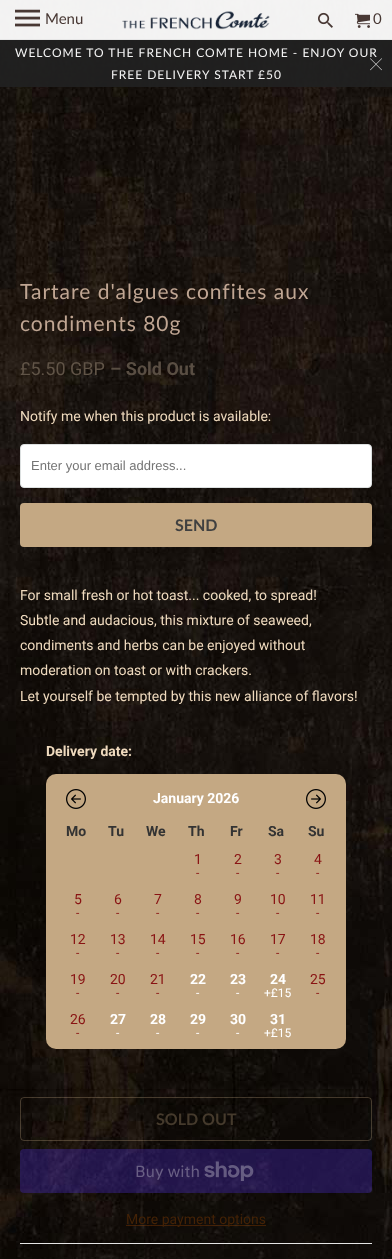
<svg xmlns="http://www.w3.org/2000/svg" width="392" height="1259">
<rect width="100%" height="100%" fill="#fff"/>
<image x="0" y="0" width="392" height="1259" href="media/1.png"/>
<rect width="392" height="39" fill="#fffffff2"/>
<rect y="39" width="392" height="1" fill="#e6e6e6"/>
<image x="15" y="9" width="25" height="18" href="media/2.png"/>
<text x="45" y="24" style="font-family:Lato;font-size:15px;fill:#473733">Menu</text>
<image x="122" y="11" width="148" height="19" href="media/3.png"/>
<image x="318" y="12" width="15" height="16" href="media/4.png"/>
<image x="355" y="13" width="15" height="15" href="media/5.png"/>
<text x="373" y="24" style="font-family:Lato;font-size:15px;fill:#473733">0</text>
<rect y="40" width="392" height="47" fill="#212121f2"/>
<text x="15" y="57" style="font-family:Lato;font-size:12px;letter-spacing:1px;fill:#f4f4f4">WELCOME TO THE FRENCH COMTE HOME - ENJOY OUR</text>
<text x="111" y="79" style="font-family:Lato;font-size:12px;letter-spacing:1px;fill:#f4f4f4">FREE DELIVERY START £50</text>
<image x="370" y="58" width="12" height="13" href="media/6.png"/>
<text x="20" y="299" style="font-family:Lato;font-size:21px;letter-spacing:1px;fill:#c0a693">Tartare d'algues confites aux</text>
<text x="20" y="331" style="font-family:Lato;font-size:21px;letter-spacing:1px;fill:#c0a693">condiments 80g</text>
<text x="20" y="375" style="font-family:Roboto;font-size:18px;fill:#605447">£5.50 GBP</text>
<text x="110" y="375" style="font-family:Roboto;font-size:18px;font-weight:bold;fill:#594e43">– Sold Out</text>
<text x="20" y="421" style="font-family:Roboto;font-size:14px;fill:#efdabe">Notify me when this product is available:</text>
<rect x="20.5" y="444.5" width="351" height="43" rx="3.5" fill="#fff" stroke="#dce0e0"/>
<text x="31" y="470" style="font-family:Liberation Sans;font-size:13px;fill:#757575">Enter your email address...</text>
<rect x="20" y="503" width="352" height="44" rx="4" fill="#c4a883"/>
<text x="175" y="531" style="font-family:Lato;font-size:16px;font-weight:bold;fill:#404040">SEND</text>
<text x="20" y="600" style="font-family:Roboto;font-size:14px;fill:#efdabe">For small fresh or hot toast... cooked, to spread!</text>
<text x="20" y="625" style="font-family:Roboto;font-size:14px;fill:#efdabe">Subtle and audacious, this mixture of seaweed,</text>
<text x="20" y="650" style="font-family:Roboto;font-size:14px;fill:#efdabe">condiments and herbs can be enjoyed without</text>
<text x="20" y="675" style="font-family:Roboto;font-size:14px;fill:#efdabe">moderation on toast or with crackers.</text>
<text x="20" y="701" style="font-family:Roboto;font-size:14px;fill:#efdabe">Let yourself be tempted by this new alliance of flavors!</text>
<text x="46" y="756" style="font-family:Roboto;font-size:14px;font-weight:bold;fill:#efdabe">Delivery date:</text>
<rect x="46" y="774" width="300" height="275" rx="10" fill="#c4a883"/>
<image x="66" y="789" width="20" height="20" href="media/7.png"/>
<text x="153" y="803" style="font-family:Roboto;font-size:14px;font-weight:bold;fill:#fff">January 2026</text>
<image x="306" y="789" width="20" height="20" href="media/8.png"/>
<text x="66" y="836" style="font-family:Roboto;font-size:14px;font-weight:bold;fill:#333">Mo</text>
<text x="108" y="836" style="font-family:Roboto;font-size:14px;font-weight:bold;fill:#333">Tu</text>
<text x="146" y="836" style="font-family:Roboto;font-size:14px;font-weight:bold;fill:#333">We</text>
<text x="188" y="836" style="font-family:Roboto;font-size:14px;font-weight:bold;fill:#333">Th</text>
<text x="230" y="836" style="font-family:Roboto;font-size:14px;font-weight:bold;fill:#333">Fr</text>
<text x="268" y="836" style="font-family:Roboto;font-size:14px;font-weight:bold;fill:#333">Sa</text>
<text x="308" y="836" style="font-family:Roboto;font-size:14px;font-weight:bold;fill:#333">Su</text>
<text x="194" y="864" style="font-family:Roboto;font-size:14px;fill:#891313">1</text>
<text x="196" y="877" style="font-family:Roboto;font-size:12px;fill:#891313">-</text>
<text x="234" y="864" style="font-family:Roboto;font-size:14px;fill:#891313">2</text>
<text x="236" y="877" style="font-family:Roboto;font-size:12px;fill:#891313">-</text>
<text x="274" y="864" style="font-family:Roboto;font-size:14px;fill:#891313">3</text>
<text x="276" y="877" style="font-family:Roboto;font-size:12px;fill:#891313">-</text>
<text x="314" y="864" style="font-family:Roboto;font-size:14px;fill:#891313">4</text>
<text x="316" y="877" style="font-family:Roboto;font-size:12px;fill:#891313">-</text>
<text x="74" y="904" style="font-family:Roboto;font-size:14px;fill:#891313">5</text>
<text x="76" y="917" style="font-family:Roboto;font-size:12px;fill:#891313">-</text>
<text x="114" y="904" style="font-family:Roboto;font-size:14px;fill:#891313">6</text>
<text x="116" y="917" style="font-family:Roboto;font-size:12px;fill:#891313">-</text>
<text x="154" y="904" style="font-family:Roboto;font-size:14px;fill:#891313">7</text>
<text x="156" y="917" style="font-family:Roboto;font-size:12px;fill:#891313">-</text>
<text x="194" y="904" style="font-family:Roboto;font-size:14px;fill:#891313">8</text>
<text x="196" y="917" style="font-family:Roboto;font-size:12px;fill:#891313">-</text>
<text x="234" y="904" style="font-family:Roboto;font-size:14px;fill:#891313">9</text>
<text x="236" y="917" style="font-family:Roboto;font-size:12px;fill:#891313">-</text>
<text x="270" y="904" style="font-family:Roboto;font-size:14px;fill:#891313">10</text>
<text x="276" y="917" style="font-family:Roboto;font-size:12px;fill:#891313">-</text>
<text x="310" y="904" style="font-family:Roboto;font-size:14px;fill:#891313">11</text>
<text x="316" y="917" style="font-family:Roboto;font-size:12px;fill:#891313">-</text>
<text x="70" y="944" style="font-family:Roboto;font-size:14px;fill:#891313">12</text>
<text x="76" y="957" style="font-family:Roboto;font-size:12px;fill:#891313">-</text>
<text x="110" y="944" style="font-family:Roboto;font-size:14px;fill:#891313">13</text>
<text x="116" y="957" style="font-family:Roboto;font-size:12px;fill:#891313">-</text>
<text x="150" y="944" style="font-family:Roboto;font-size:14px;fill:#891313">14</text>
<text x="156" y="957" style="font-family:Roboto;font-size:12px;fill:#891313">-</text>
<text x="190" y="944" style="font-family:Roboto;font-size:14px;fill:#891313">15</text>
<text x="196" y="957" style="font-family:Roboto;font-size:12px;fill:#891313">-</text>
<text x="230" y="944" style="font-family:Roboto;font-size:14px;fill:#891313">16</text>
<text x="236" y="957" style="font-family:Roboto;font-size:12px;fill:#891313">-</text>
<text x="270" y="944" style="font-family:Roboto;font-size:14px;fill:#891313">17</text>
<text x="276" y="957" style="font-family:Roboto;font-size:12px;fill:#891313">-</text>
<text x="310" y="944" style="font-family:Roboto;font-size:14px;fill:#891313">18</text>
<text x="316" y="957" style="font-family:Roboto;font-size:12px;fill:#891313">-</text>
<text x="70" y="984" style="font-family:Roboto;font-size:14px;fill:#891313">19</text>
<text x="76" y="997" style="font-family:Roboto;font-size:12px;fill:#891313">-</text>
<text x="110" y="984" style="font-family:Roboto;font-size:14px;fill:#891313">20</text>
<text x="116" y="997" style="font-family:Roboto;font-size:12px;fill:#891313">-</text>
<text x="150" y="984" style="font-family:Roboto;font-size:14px;fill:#891313">21</text>
<text x="156" y="997" style="font-family:Roboto;font-size:12px;fill:#891313">-</text>
<text x="190" y="984" style="font-family:Roboto;font-size:14px;font-weight:bold;fill:#fff">22</text>
<text x="196" y="997" style="font-family:Roboto;font-size:12px;fill:#fff">-</text>
<text x="230" y="984" style="font-family:Roboto;font-size:14px;font-weight:bold;fill:#fff">23</text>
<text x="236" y="997" style="font-family:Roboto;font-size:12px;fill:#fff">-</text>
<text x="270" y="984" style="font-family:Roboto;font-size:14px;font-weight:bold;fill:#fff">24</text>
<text x="264" y="997" style="font-family:Roboto;font-size:12px;fill:#fff">+£15</text>
<text x="310" y="984" style="font-family:Roboto;font-size:14px;fill:#891313">25</text>
<text x="316" y="997" style="font-family:Roboto;font-size:12px;fill:#891313">-</text>
<text x="70" y="1024" style="font-family:Roboto;font-size:14px;fill:#891313">26</text>
<text x="76" y="1037" style="font-family:Roboto;font-size:12px;fill:#891313">-</text>
<text x="110" y="1024" style="font-family:Roboto;font-size:14px;font-weight:bold;fill:#fff">27</text>
<text x="116" y="1037" style="font-family:Roboto;font-size:12px;fill:#fff">-</text>
<text x="150" y="1024" style="font-family:Roboto;font-size:14px;font-weight:bold;fill:#fff">28</text>
<text x="156" y="1037" style="font-family:Roboto;font-size:12px;fill:#fff">-</text>
<text x="190" y="1024" style="font-family:Roboto;font-size:14px;font-weight:bold;fill:#fff">29</text>
<text x="196" y="1037" style="font-family:Roboto;font-size:12px;fill:#fff">-</text>
<text x="230" y="1024" style="font-family:Roboto;font-size:14px;font-weight:bold;fill:#fff">30</text>
<text x="236" y="1037" style="font-family:Roboto;font-size:12px;fill:#fff">-</text>
<text x="270" y="1024" style="font-family:Roboto;font-size:14px;font-weight:bold;fill:#fff">31</text>
<text x="264" y="1037" style="font-family:Roboto;font-size:12px;fill:#fff">+£15</text>
<rect x="20.5" y="1097.5" width="351" height="43" rx="3.5" fill="none" stroke="#c4a8834d"/>
<text x="156" y="1125" style="font-family:Lato;font-size:16px;font-weight:bold;fill:#453a2c">SOLD OUT</text>
<rect x="20" y="1149" width="352" height="44" rx="4" fill="#5433eb4d"/>
<text x="135" y="1177" style="font-family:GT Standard;font-size:16px;fill:#695f84">Buy with</text>
<image x="204" y="1161" width="50" height="20" href="media/9.png"/>
<rect x="126" y="1225" width="140" height="1" fill="#b751004d"/>
<text x="126" y="1224" style="font-family:Roboto;font-size:14px;fill:#432206">More payment options</text>
<rect x="20" y="1243" width="352" height="1" fill="#e5e5e5"/>
</svg>
